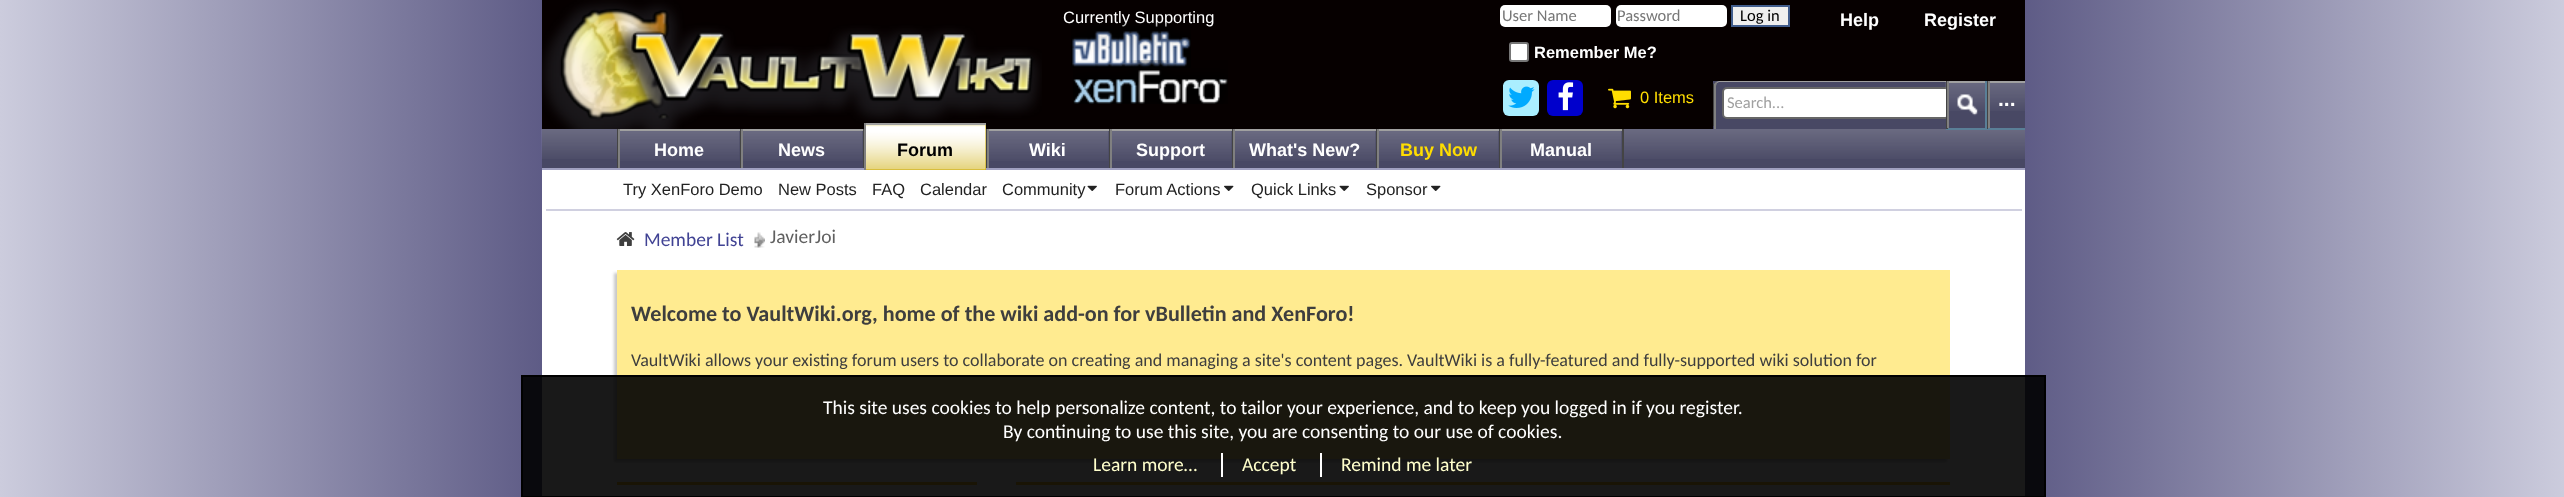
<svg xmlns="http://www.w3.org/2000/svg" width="2564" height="497">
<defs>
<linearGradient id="g1" gradientUnits="userSpaceOnUse" x1="1283" y1="249" x2="0" y2="249"><stop offset="0" stop-color="#fff"/><stop offset="0.52" stop-color="#fff"/><stop offset="0.52" stop-color="#4f4c7a"/><stop offset="1" stop-color="#ccd"/></linearGradient>
<linearGradient id="g2" gradientUnits="userSpaceOnUse" x1="1283" y1="249" x2="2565" y2="249"><stop offset="0" stop-color="#fff"/><stop offset="0.52" stop-color="#fff"/><stop offset="0.52" stop-color="#4f4c7a"/><stop offset="1" stop-color="#ccd"/></linearGradient>
</defs>
<rect width="100%" height="100%" fill="#fff"/>
<rect width="542" height="497" fill="url(#g1)"/>
<rect x="2025" width="539" height="497" fill="url(#g2)"/>
<rect x="542" width="1483" height="129" fill="#060000"/>
<image x="541" y="0" width="501" height="129" href="media/1.png"/>
<text x="1063" y="23" style="font-family:Liberation Sans;font-size:16.5px;fill:#fff">Currently Supporting</text>
<image x="1071" y="22" width="120" height="46" href="media/2.png"/>
<image x="1073" y="60" width="155" height="44" href="media/3.png"/>
<rect x="1500" y="5" width="111" height="22" rx="5" fill="#fff"/>
<text x="1502" y="21" style="font-family:Carlito;font-size:16.5px;fill:#777">User Name</text>
<rect x="1616" y="5" width="111" height="22" rx="5" fill="#fff"/>
<text x="1617" y="21" style="font-family:Carlito;font-size:16.5px;fill:#777">Password</text>
<rect x="1732" y="6" width="57" height="20" fill="#efefef" stroke="#415d8d" stroke-width="2"/>
<text x="1740" y="21" style="font-family:Carlito;font-size:16.5px;fill:#000">Log in</text>
<rect x="1510" y="43" width="18" height="18" rx="2" fill="#fff" stroke="#767676" stroke-width="2"/>
<text x="1534" y="58" style="font-family:Liberation Sans;font-size:16.5px;font-weight:bold;fill:#fff">Remember Me?</text>
<text x="1840" y="26" style="font-family:Liberation Sans;font-size:18px;font-weight:bold;fill:#fff">Help</text>
<text x="1924" y="26" style="font-family:Liberation Sans;font-size:18px;font-weight:bold;fill:#fff">Register</text>
<rect x="1503" y="80" width="36" height="36" rx="6" fill="#aef"/>
<image x="1508" y="86" width="27" height="22" href="media/4.png"/>
<rect x="1547" y="80" width="36" height="36" rx="6" fill="#00c"/>
<image x="1558" y="82" width="16" height="29" href="media/5.png"/>
<image x="1608" y="88" width="23" height="21" href="media/6.png"/>
<text x="1640" y="103" style="font-family:Liberation Sans;font-size:16.5px;fill:#fd0">0 Items</text>
<rect x="546" y="209" width="1476" height="2" fill="#d0d0e0"/>
<rect x="1713" y="81" width="312" height="48" fill="#484864"/>
<rect x="1713" y="84" width="1" height="42" fill="#444"/>
<path d="M1719 81l-3 1l1 1l2-1h227v-1z" fill="#a0a0a0"/>
<path d="M1714 129v-45l2-2l1 1l-1 3v43z" fill="#808080"/>
<rect x="1723" y="88" width="226" height="30" rx="4" fill="#fff" stroke="#666" stroke-width="2"/>
<text x="1727" y="108" style="font-family:Carlito;font-size:16.5px;fill:#a0a0a0">Search...</text>
<rect x="1949" y="89" width="1" height="28" fill="#484864"/>
<image x="1945" y="81" width="40" height="30" href="media/7.png"/>
<rect x="542" y="129" width="1483" height="39" fill="#484864"/>
<image x="541" y="129" width="1484" height="30" href="media/10.png"/>
<rect x="1986" y="128" width="39" height="2" fill="#5a7f97"/>
<rect x="1985" y="81" width="2" height="48" fill="#5a7f97"/>
<rect x="1946" y="128" width="40" height="2" fill="#5a7f97"/>
<rect x="1946" y="81" width="2" height="48" fill="#444"/>
<rect x="1947" y="81" width="38" height="2" fill="#a0a0a0"/>
<rect x="1947" y="81" width="2" height="47" fill="#808080"/>
<image x="1957" y="94" width="21" height="22" href="media/8.png"/>
<image x="1990" y="83" width="35" height="28" href="media/9.png"/>
<rect x="1987" y="81" width="1" height="48" fill="#444"/>
<rect x="1988" y="81" width="37" height="2" fill="#a0a0a0"/>
<rect x="1988" y="81" width="2" height="47" fill="#808080"/>
<text x="1998" y="106" style="font-family:Liberation Sans;font-size:21px;font-weight:bold;fill:#fff">...</text>
<rect x="740" y="129" width="1" height="41" fill="#444"/>
<rect x="617" y="129" width="1" height="41" fill="#444"/>
<rect x="620" y="131" width="120" height="28" fill="#484864"/>
<image x="620" y="131" width="120" height="30" href="media/11.png"/>
<rect x="618" y="129" width="122" height="2" fill="#a0a0a0"/>
<rect x="618" y="129" width="2" height="41" fill="#808080"/>
<text x="654" y="156" style="font-family:Liberation Sans;font-size:18px;font-weight:bold;fill:#fff">Home</text>
<rect x="863" y="129" width="1" height="41" fill="#444"/>
<rect x="743" y="131" width="120" height="28" fill="#484864"/>
<image x="743" y="131" width="120" height="30" href="media/11.png"/>
<rect x="741" y="129" width="122" height="2" fill="#a0a0a0"/>
<rect x="741" y="129" width="2" height="41" fill="#808080"/>
<text x="778" y="156" style="font-family:Liberation Sans;font-size:18px;font-weight:bold;fill:#fff">News</text>
<rect x="986" y="129" width="1" height="39" fill="#444"/>
<rect x="1109" y="129" width="1" height="41" fill="#444"/>
<rect x="987" y="129" width="122" height="2" fill="#a0a0a0"/>
<rect x="987" y="129" width="2" height="41" fill="#808080"/>
<rect x="1232" y="129" width="1" height="41" fill="#444"/>
<rect x="1110" y="129" width="122" height="2" fill="#a0a0a0"/>
<rect x="1110" y="129" width="2" height="41" fill="#808080"/>
<rect x="1376" y="129" width="1" height="41" fill="#444"/>
<rect x="1233" y="129" width="143" height="2" fill="#a0a0a0"/>
<rect x="1233" y="129" width="2" height="41" fill="#808080"/>
<rect x="1499" y="129" width="1" height="41" fill="#444"/>
<rect x="1377" y="129" width="122" height="2" fill="#a0a0a0"/>
<rect x="1377" y="129" width="2" height="41" fill="#808080"/>
<rect x="1622" y="129" width="2" height="41" fill="#444"/>
<rect x="1500" y="129" width="122" height="2" fill="#a0a0a0"/>
<rect x="1500" y="129" width="2" height="41" fill="#808080"/>
<rect x="542" y="168" width="1483" height="2" fill="#a0a0c0"/>
<rect x="866" y="125" width="120" height="45" fill="#ca0"/>
<image x="866" y="125" width="120" height="45" href="media/12.png"/>
<rect x="864" y="123" width="122" height="2" fill="#a0a0a0"/>
<rect x="864" y="123" width="2" height="47" fill="#808080"/>
<text x="897" y="156" style="font-family:Liberation Sans;font-size:18px;font-weight:bold;fill:#000">Forum</text>
<rect x="989" y="131" width="120" height="28" fill="#484864"/>
<image x="989" y="131" width="120" height="30" href="media/11.png"/>
<text x="1029" y="156" style="font-family:Liberation Sans;font-size:18px;font-weight:bold;fill:#fff">Wiki</text>
<rect x="1112" y="131" width="120" height="28" fill="#484864"/>
<image x="1112" y="131" width="120" height="30" href="media/11.png"/>
<text x="1136" y="156" style="font-family:Liberation Sans;font-size:18px;font-weight:bold;fill:#fff">Support</text>
<rect x="1235" y="131" width="141" height="28" fill="#484864"/>
<image x="1235" y="131" width="141" height="30" href="media/13.png"/>
<text x="1249" y="156" style="font-family:Liberation Sans;font-size:18px;font-weight:bold;fill:#fff">What's New?</text>
<rect x="1379" y="131" width="120" height="28" fill="#484864"/>
<image x="1379" y="131" width="120" height="30" href="media/11.png"/>
<text x="1400" y="156" style="font-family:Liberation Sans;font-size:18px;font-weight:bold;fill:#fd0">Buy Now</text>
<rect x="1502" y="131" width="120" height="28" fill="#484864"/>
<image x="1502" y="131" width="120" height="30" href="media/11.png"/>
<text x="1530" y="156" style="font-family:Liberation Sans;font-size:18px;font-weight:bold;fill:#fff">Manual</text>
<text x="623" y="195" style="font-family:Liberation Sans;font-size:16.5px;fill:#222">Try XenForo Demo</text>
<text x="778" y="195" style="font-family:Liberation Sans;font-size:16.5px;fill:#222">New Posts</text>
<text x="872" y="195" style="font-family:Liberation Sans;font-size:16.5px;fill:#222">FAQ</text>
<text x="920" y="195" style="font-family:Liberation Sans;font-size:16.5px;fill:#222">Calendar</text>
<text x="1002" y="195" style="font-family:Liberation Sans;font-size:16.5px;fill:#222">Community</text>
<image x="1087" y="185" width="10" height="6" href="media/14.png"/>
<text x="1115" y="195" style="font-family:Liberation Sans;font-size:16.5px;fill:#222">Forum Actions</text>
<image x="1224" y="185" width="10" height="6" href="media/15.png"/>
<text x="1251" y="195" style="font-family:Liberation Sans;font-size:16.5px;fill:#222">Quick Links</text>
<image x="1339" y="185" width="10" height="6" href="media/14.png"/>
<text x="1366" y="195" style="font-family:Liberation Sans;font-size:16.5px;fill:#222">Sponsor</text>
<image x="1431" y="185" width="10" height="6" href="media/15.png"/>
<image x="616" y="232" width="19" height="14" href="media/16.png"/>
<image x="754" y="232" width="11" height="16" href="media/17.png"/>
<text x="644" y="246" style="font-family:Carlito;font-size:19.5px;fill:#414394">Member List</text>
<text x="770" y="243" style="font-family:Carlito;font-size:19.5px;fill:#606060">JavierJoi</text>
<rect x="614" y="273" width="1333" height="189" fill="#c8c8c8" filter="blur(1.5px)"/>
<rect x="617" y="270" width="1333" height="189" fill="#ffeb90"/>
<text x="631" y="321" style="font-family:Carlito;font-size:22.15px;font-weight:bold;fill:#3e3e3e">Welcome to VaultWiki.org, home of the wiki add-on for vBulletin and XenForo!</text>
<text x="631" y="366" style="font-family:Carlito;font-size:18px;fill:#3e3e3e">VaultWiki allows your existing forum users to collaborate on creating and managing a site's content pages. VaultWiki is a fully-featured and fully-supported wiki solution for</text>
<rect x="617" y="482" width="360" height="3" fill="#fc3"/>
<rect x="1016" y="482" width="934" height="3" fill="#fc3"/>
<rect x="522" y="376" width="1523" height="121" fill="#000000e6" stroke="#000" stroke-width="2"/>
<text x="823" y="414" style="font-family:Carlito;font-size:19.5px;fill:#fff">This site uses cookies to help personalize content, to tailor your experience, and to keep you logged in if you register.</text>
<text x="1003" y="438" style="font-family:Carlito;font-size:19.5px;fill:#fff">By continuing to use this site, you are consenting to our use of cookies.</text>
<text x="1093" y="471" style="font-family:Carlito;font-size:19.5px;fill:#ffc">Learn more…</text>
<rect x="1221" y="453" width="2" height="24" fill="#fff"/>
<text x="1242" y="471" style="font-family:Carlito;font-size:19.5px;fill:#ffc">Accept</text>
<rect x="1320" y="453" width="2" height="24" fill="#fff"/>
<text x="1341" y="471" style="font-family:Carlito;font-size:19.5px;fill:#ffc">Remind me later</text>
</svg>
